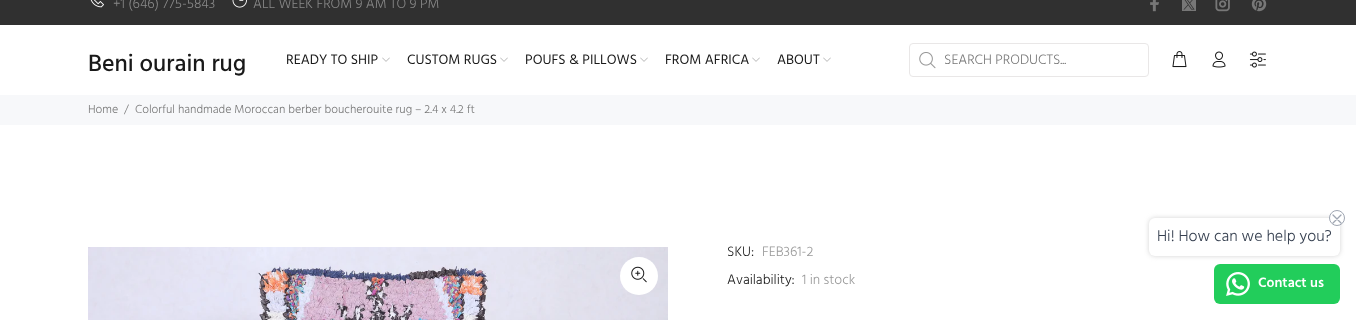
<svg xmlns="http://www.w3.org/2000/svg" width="1356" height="320">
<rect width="100%" height="100%" fill="#fff"/>
<rect width="1356" height="25" fill="#303030"/>
<image x="90" y="0" width="14" height="8" href="media/1.png"/>
<text x="113" y="8" style="font-family:Hind;font-size:14px;font-weight:300;fill:#888">+1 (646) 775-5843</text>
<image x="232" y="0" width="15" height="8" href="media/2.png"/>
<text x="253" y="8" style="font-family:Hind;font-size:14px;font-weight:300;fill:#888">ALL WEEK FROM 9 AM TO 9 PM</text>
<image x="1150" y="0" width="9" height="12" href="media/3.png"/>
<image x="1182" y="0" width="14" height="11" href="media/4.png"/>
<image x="1215" y="0" width="15" height="12" href="media/5.png"/>
<image x="1251" y="0" width="16" height="12" href="media/6.png"/>
<text x="88" y="71" style="font-family:Hind;font-size:24px;font-weight:500;fill:#191919">Beni ourain rug</text>
<text x="286" y="64" style="font-family:Hind;font-size:14px;fill:#191919">READY TO SHIP</text>
<image x="382" y="57" width="8" height="5" href="media/7.png"/>
<text x="407" y="64" style="font-family:Hind;font-size:14px;fill:#191919">CUSTOM RUGS</text>
<image x="500" y="57" width="8" height="5" href="media/7.png"/>
<text x="525" y="64" style="font-family:Hind;font-size:14px;fill:#191919">POUFS &amp; PILLOWS</text>
<image x="640" y="57" width="8" height="5" href="media/7.png"/>
<text x="665" y="64" style="font-family:Hind;font-size:14px;fill:#191919">FROM AFRICA</text>
<image x="752" y="57" width="8" height="5" href="media/7.png"/>
<text x="777" y="64" style="font-family:Hind;font-size:14px;fill:#191919">ABOUT</text>
<image x="823" y="57" width="8" height="5" href="media/7.png"/>
<rect x="909.5" y="43.5" width="239" height="33" rx="3.5" fill="none" stroke="#e9e7e7"/>
<image x="919" y="52" width="17" height="17" href="media/8.png"/>
<text x="944" y="64" style="font-family:Hind;font-size:14px;font-weight:300;fill:#777">SEARCH PRODUCTS...</text>
<image x="1172" y="51" width="15" height="17" href="media/9.png"/>
<image x="1212" y="51" width="14" height="17" href="media/10.png"/>
<image x="1249" y="51" width="17" height="17" href="media/11.png"/>
<rect y="95" width="1356" height="30" fill="#f7f8fa"/>
<text x="88" y="113" style="font-family:Hind;font-size:12px;font-weight:300;fill:#777">Home</text>
<text x="124" y="113" style="font-family:Hind;font-size:12px;font-weight:300;fill:#777">/</text>
<text x="135" y="113" style="font-family:Hind;font-size:12px;font-weight:300;fill:#777">Colorful handmade Moroccan berber boucherouite rug – 2.4 x 4.2 ft</text>
<rect x="1214" y="264" width="126" height="40" rx="6" fill="#22cd5b"/>
<rect x="1149" y="218" width="191" height="38" rx="6" fill="#d3d3d3" filter="blur(2.5px)"/>
<rect x="1149" y="218" width="191" height="38" rx="6" fill="#fff"/>
<circle cx="1337" cy="218" r="7.5" fill="#fff" stroke="#9fa6b2"/>
<path d="M1333 223l8-8m-8 0l8 8" fill="none" stroke="#9fa6b2" stroke-width="1.3" stroke-linecap="round" stroke-linejoin="round"/>
<text x="1157" y="241" style="font-family:Hind;font-size:16px;font-weight:300;fill:#374151">Hi! How can we help you?</text>
<image x="88" y="247" width="580" height="73" href="media/12.png"/>
<circle cx="639" cy="276" r="19" fill="#fff"/>
<image x="631" y="266" width="16" height="17" href="media/13.png"/>
<text x="727" y="256" style="font-family:Hind;font-size:14px;font-weight:300;fill:#191919">SKU:</text>
<text x="762" y="256" style="font-family:Hind;font-size:14px;font-weight:300;fill:#999">FEB361-2</text>
<text x="727" y="284" style="font-family:Hind;font-size:14px;font-weight:300;fill:#191919">Availability:</text>
<text x="802" y="284" style="font-family:Hind;font-size:14px;font-weight:300;fill:#999">1 in stock</text>
<image x="1226" y="272" width="24" height="24" href="media/14.png"/>
<text x="1258" y="287" style="font-family:Hind;font-size:14px;font-weight:600;fill:#fff">Contact us</text>
</svg>
